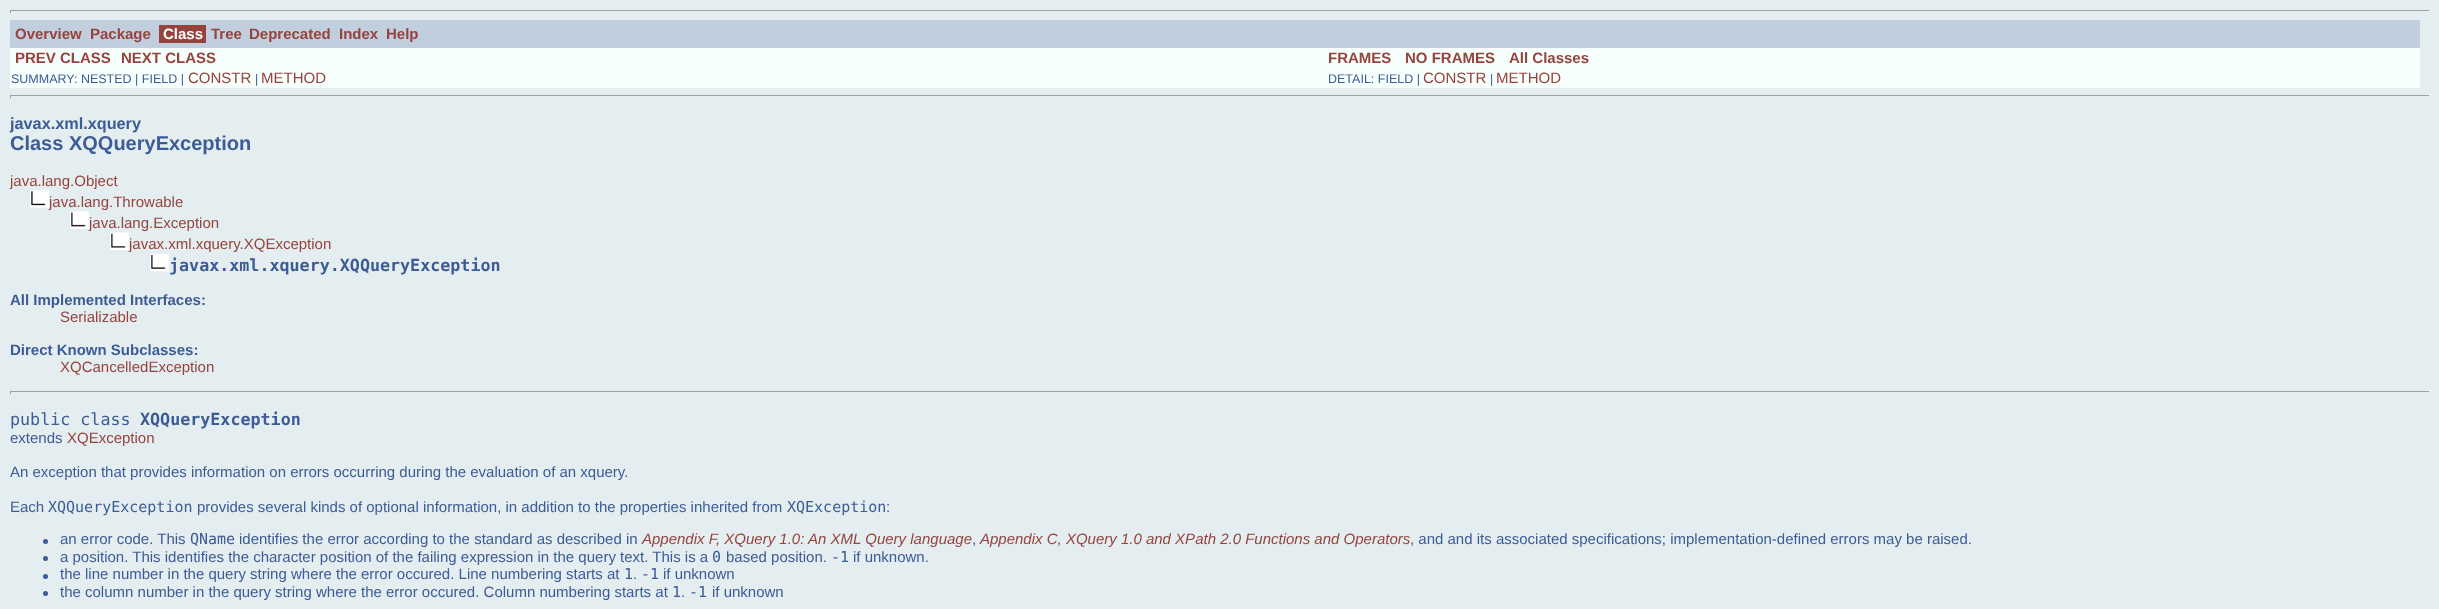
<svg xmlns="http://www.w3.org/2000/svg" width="2439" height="609">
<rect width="100%" height="100%" fill="#e4eef0"/>
<rect x="10" y="10" width="2420" height="1" fill="#9f9f9f"/>
<rect x="2429" y="10" width="1" height="3" fill="#eee"/>
<rect x="10" y="11" width="2420" height="1" fill="#eee"/>
<rect x="10" y="10" width="1" height="3" fill="#9f9f9f"/>
<rect x="10" y="20" width="2410" height="28" fill="#c1cede"/>
<text x="15" y="39" style="font-family:Liberation Sans;font-size:15px;font-weight:bold;fill:#96433d">Overview</text>
<text x="90" y="39" style="font-family:Liberation Sans;font-size:15px;font-weight:bold;fill:#96433d">Package</text>
<rect x="159" y="25" width="47" height="18" fill="#96433d"/>
<text x="163" y="39" style="font-family:Liberation Sans;font-size:15px;font-weight:bold;fill:#fff">Class</text>
<text x="211" y="39" style="font-family:Liberation Sans;font-size:15px;font-weight:bold;fill:#96433d">Tree</text>
<text x="249" y="39" style="font-family:Liberation Sans;font-size:15px;font-weight:bold;fill:#96433d">Deprecated</text>
<text x="339" y="39" style="font-family:Liberation Sans;font-size:15px;font-weight:bold;fill:#96433d">Index</text>
<text x="386" y="39" style="font-family:Liberation Sans;font-size:15px;font-weight:bold;fill:#96433d">Help</text>
<rect x="10" y="48" width="2410" height="20" fill="#f6fffb"/>
<text x="15" y="63" style="font-family:Liberation Sans;font-size:15px;font-weight:bold;fill:#96433d">PREV CLASS</text>
<text x="121" y="63" style="font-family:Liberation Sans;font-size:15px;font-weight:bold;fill:#96433d">NEXT CLASS</text>
<text x="1328" y="63" style="font-family:Liberation Sans;font-size:15px;font-weight:bold;fill:#96433d">FRAMES</text>
<text x="1405" y="63" style="font-family:Liberation Sans;font-size:15px;font-weight:bold;fill:#96433d">NO FRAMES</text>
<text x="1509" y="63" style="font-family:Liberation Sans;font-size:15px;font-weight:bold;fill:#96433d">All Classes</text>
<rect x="10" y="68" width="2410" height="20" fill="#f6fffb"/>
<text x="11" y="83" style="font-family:Liberation Sans;font-size:12.5px;fill:#3d5b96">SUMMARY: NESTED | FIELD |</text>
<text x="188" y="83" style="font-family:Liberation Sans;font-size:15px;fill:#96433d">CONSTR</text>
<text x="255" y="83" style="font-family:Liberation Sans;font-size:12.5px;fill:#3d5b96">|</text>
<text x="261" y="83" style="font-family:Liberation Sans;font-size:15px;fill:#96433d">METHOD</text>
<text x="1328" y="83" style="font-family:Liberation Sans;font-size:12.5px;fill:#3d5b96">DETAIL: FIELD |</text>
<text x="1423" y="83" style="font-family:Liberation Sans;font-size:15px;fill:#96433d">CONSTR</text>
<text x="1490" y="83" style="font-family:Liberation Sans;font-size:12.5px;fill:#3d5b96">|</text>
<text x="1496" y="83" style="font-family:Liberation Sans;font-size:15px;fill:#96433d">METHOD</text>
<rect x="10" y="95" width="2420" height="1" fill="#9f9f9f"/>
<rect x="2429" y="95" width="1" height="3" fill="#eee"/>
<rect x="10" y="96" width="2420" height="1" fill="#eee"/>
<rect x="10" y="95" width="1" height="3" fill="#9f9f9f"/>
<text x="10" y="129" style="font-family:Liberation Sans;font-size:16.25px;font-weight:bold;fill:#3d5b96">javax.xml.xquery</text>
<text x="10" y="150" style="font-family:Liberation Sans;font-size:20px;font-weight:bold;fill:#3d5b96">Class XQQueryException</text>
<text x="10" y="186" style="font-family:Liberation Sans;font-size:15px;fill:#96433d">java.lang.Object</text>
<image x="30" y="190" width="19" height="18" href="media/1.png"/>
<text x="49" y="207" style="font-family:Liberation Sans;font-size:15px;fill:#96433d">java.lang.Throwable</text>
<image x="70" y="211" width="19" height="18" href="media/2.png"/>
<text x="89" y="228" style="font-family:Liberation Sans;font-size:15px;fill:#96433d">java.lang.Exception</text>
<image x="110" y="232" width="19" height="18" href="media/3.png"/>
<text x="129" y="249" style="font-family:Liberation Sans;font-size:15px;fill:#96433d">javax.xml.xquery.XQException</text>
<image x="150" y="253" width="19" height="19" href="media/4.png"/>
<text x="169" y="271" style="font-family:DejaVu Sans Mono;font-size:16.7px;font-weight:bold;fill:#3d5b96">javax.xml.xquery.XQQueryException</text>
<text x="10" y="305" style="font-family:Liberation Sans;font-size:15px;font-weight:bold;fill:#3d5b96">All Implemented Interfaces:</text>
<text x="60" y="322" style="font-family:Liberation Sans;font-size:15px;fill:#96433d">Serializable</text>
<text x="10" y="355" style="font-family:Liberation Sans;font-size:15px;font-weight:bold;fill:#3d5b96">Direct Known Subclasses:</text>
<text x="60" y="372" style="font-family:Liberation Sans;font-size:15px;fill:#96433d">XQCancelledException</text>
<rect x="10" y="391" width="2420" height="1" fill="#9f9f9f"/>
<rect x="2429" y="391" width="1" height="3" fill="#eee"/>
<rect x="10" y="393" width="2420" height="1" fill="#eee"/>
<rect x="10" y="391" width="1" height="3" fill="#9f9f9f"/>
<text x="10" y="425" style="font-family:DejaVu Sans Mono;font-size:16.7px;fill:#3d5b96">public class</text>
<text x="140" y="425" style="font-family:DejaVu Sans Mono;font-size:16.7px;font-weight:bold;fill:#3d5b96">XQQueryException</text>
<text x="10" y="443" style="font-family:Liberation Sans;font-size:15px;fill:#3d5b96">extends</text>
<text x="67" y="443" style="font-family:Liberation Sans;font-size:15px;fill:#96433d">XQException</text>
<text x="10" y="477" style="font-family:Liberation Sans;font-size:15px;fill:#3d5b96">An exception that provides information on errors occurring during the evaluation of an xquery.</text>
<text x="10" y="512" style="font-family:Liberation Sans;font-size:15px;fill:#3d5b96">Each</text>
<text x="48" y="512" style="font-family:DejaVu Sans Mono;font-size:15px;fill:#3d5b96">XQQueryException</text>
<text x="197" y="512" style="font-family:Liberation Sans;font-size:15px;fill:#3d5b96">provides several kinds of optional information, in addition to the properties inherited from</text>
<text x="787" y="512" style="font-family:DejaVu Sans Mono;font-size:15px;fill:#3d5b96">XQException</text>
<text x="886" y="512" style="font-family:Liberation Sans;font-size:15px;fill:#3d5b96">:</text>
<circle cx="45.5" cy="541.5" r="2.5" fill="#3d5b96"/>
<text x="60" y="544" style="font-family:Liberation Sans;font-size:15px;fill:#3d5b96">an error code. This</text>
<text x="190" y="544" style="font-family:DejaVu Sans Mono;font-size:15px;fill:#3d5b96">QName</text>
<text x="239" y="544" style="font-family:Liberation Sans;font-size:15px;fill:#3d5b96">identifies the error according to the standard as described in</text>
<text x="642" y="544" style="font-family:Liberation Sans;font-size:15px;font-style:italic;fill:#96433d">Appendix F, XQuery 1.0:</text>
<text x="808" y="544" style="font-family:Liberation Sans;font-size:15px;font-style:italic;fill:#96433d">An XML Query language</text>
<text x="972" y="544" style="font-family:Liberation Sans;font-size:15px;fill:#3d5b96">,</text>
<text x="980" y="544" style="font-family:Liberation Sans;font-size:15px;font-style:italic;fill:#96433d">Appendix C, XQuery 1.0 and XPath 2.0 Functions and Operators</text>
<text x="1410" y="544" style="font-family:Liberation Sans;font-size:15px;fill:#3d5b96">, and and its associated specifications; implementation-defined errors may be raised.</text>
<circle cx="45.5" cy="558.5" r="2.5" fill="#3d5b96"/>
<text x="60" y="562" style="font-family:Liberation Sans;font-size:15px;fill:#3d5b96">a position. This identifies the character position of the failing expression in the query text. This is a</text>
<text x="712" y="562" style="font-family:DejaVu Sans Mono;font-size:15px;fill:#3d5b96">0</text>
<text x="726" y="562" style="font-family:Liberation Sans;font-size:15px;fill:#3d5b96">based position.</text>
<text x="831" y="562" style="font-family:DejaVu Sans Mono;font-size:15px;fill:#3d5b96">-1</text>
<text x="853" y="562" style="font-family:Liberation Sans;font-size:15px;fill:#3d5b96">if unknown.</text>
<circle cx="45.5" cy="576.5" r="2.5" fill="#3d5b96"/>
<text x="60" y="579" style="font-family:Liberation Sans;font-size:15px;fill:#3d5b96">the line number in the query string where the error occured. Line numbering starts at</text>
<text x="624" y="579" style="font-family:DejaVu Sans Mono;font-size:15px;fill:#3d5b96">1</text>
<text x="633" y="579" style="font-family:Liberation Sans;font-size:15px;fill:#3d5b96">.</text>
<text x="641" y="579" style="font-family:DejaVu Sans Mono;font-size:15px;fill:#3d5b96">-1</text>
<text x="663" y="579" style="font-family:Liberation Sans;font-size:15px;fill:#3d5b96">if unknown</text>
<circle cx="45.5" cy="593.5" r="2.5" fill="#3d5b96"/>
<text x="60" y="597" style="font-family:Liberation Sans;font-size:15px;fill:#3d5b96">the column number in the query string where the error occured. Column numbering starts at</text>
<text x="672" y="597" style="font-family:DejaVu Sans Mono;font-size:15px;fill:#3d5b96">1</text>
<text x="681" y="597" style="font-family:Liberation Sans;font-size:15px;fill:#3d5b96">.</text>
<text x="689" y="597" style="font-family:DejaVu Sans Mono;font-size:15px;fill:#3d5b96">-1</text>
<text x="712" y="597" style="font-family:Liberation Sans;font-size:15px;fill:#3d5b96">if unknown</text>
</svg>
